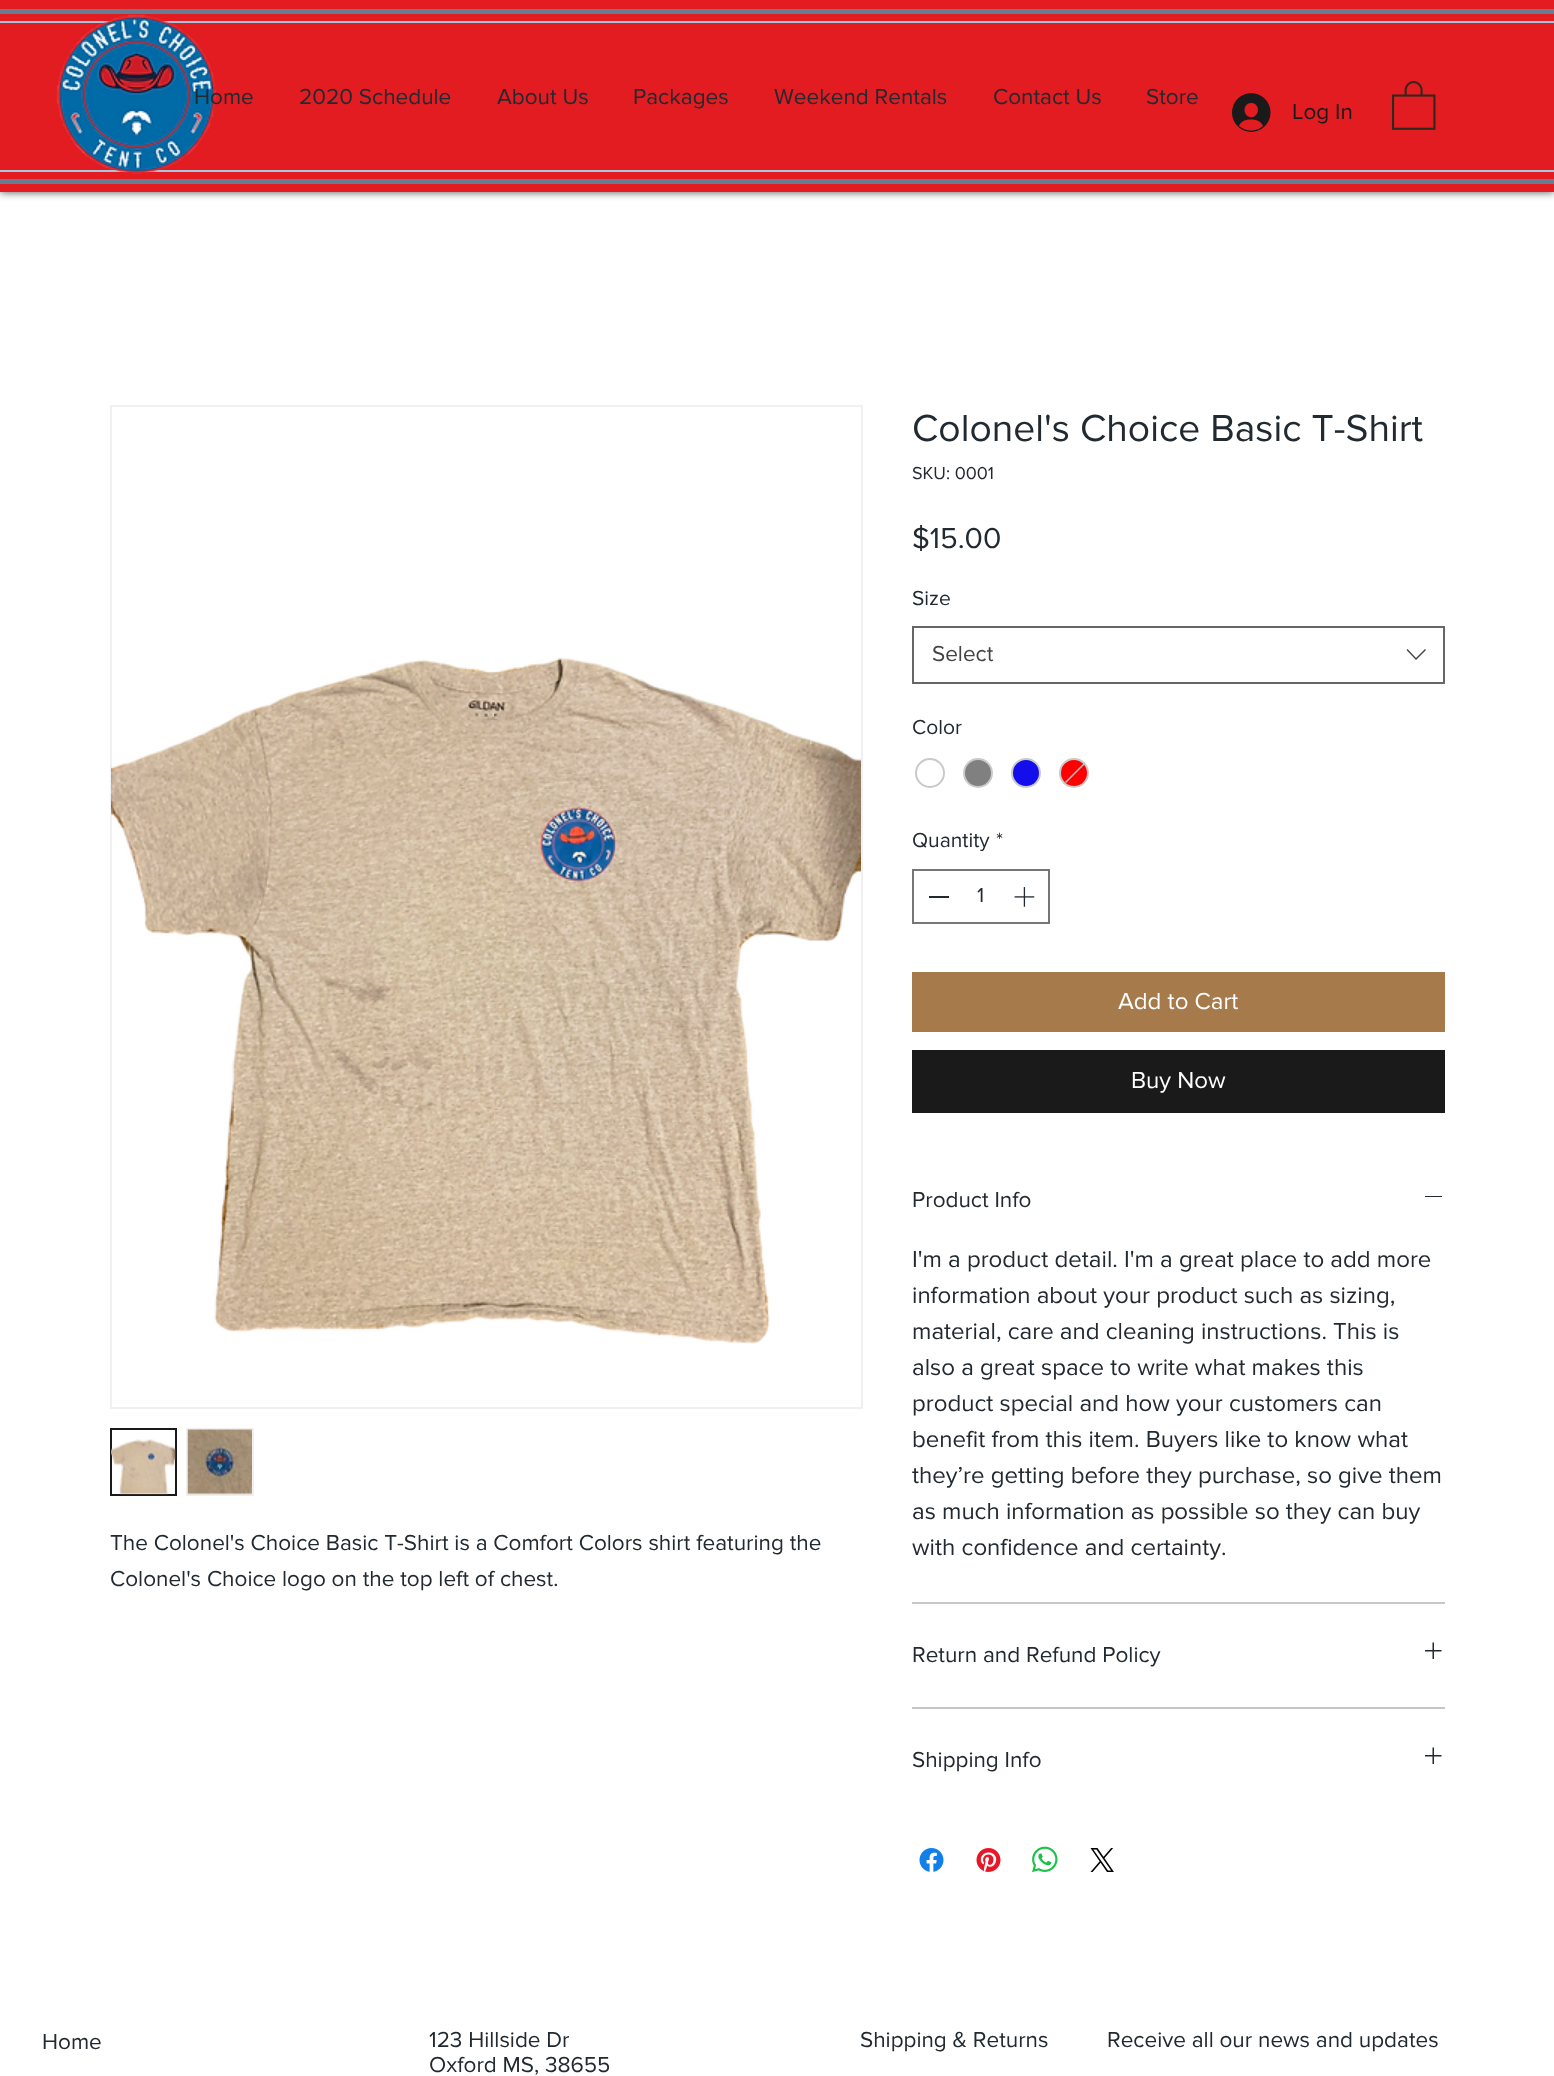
<svg xmlns="http://www.w3.org/2000/svg" width="1554" height="2076">
<rect width="100%" height="100%" fill="#fff"/>
<rect width="1554" height="192" fill="#000000b3" filter="blur(4px)"/>
<rect width="1554" height="192" fill="#e21c21"/>
<rect y="9" width="1554" height="5" fill="#667d92"/>
<rect y="179" width="1554" height="5" fill="#667d92"/>
<rect y="21" width="1554" height="2" fill="#a5c8de"/>
<rect y="170" width="1554" height="2" fill="#a5c8de"/>
<image x="56" y="14" width="160" height="160" href="media/1.png"/>
<text x="194" y="104" style="font-family:'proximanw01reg';font-size:22.5px;fill:#222a31">Home</text>
<text x="299" y="104" style="font-family:'proximanw01reg';font-size:22.5px;fill:#222a31">2020 Schedule</text>
<text x="497" y="104" style="font-family:'proximanw01reg';font-size:22.5px;fill:#222a31">About Us</text>
<text x="633" y="104" style="font-family:'proximanw01reg';font-size:22.5px;fill:#222a31">Packages</text>
<text x="774" y="104" style="font-family:'proximanw01reg';font-size:22.5px;fill:#222a31">Weekend Rentals</text>
<text x="993" y="104" style="font-family:'proximanw01reg';font-size:22.5px;fill:#222a31">Contact Us</text>
<text x="1146" y="104" style="font-family:'proximanw01reg';font-size:22.5px;fill:#222a31">Store</text>
<image x="1392" y="81" width="44" height="49" href="media/2.png"/>
<image x="1232" y="93" width="39" height="39" href="media/3.png"/>
<text x="1292" y="119" style="font-family:'proximanw01reg';font-size:22.5px;fill:#1a1a1a">Log In</text>
<rect x="111" y="406" width="751" height="1002" fill="none" stroke="#f0f0f0" stroke-width="2"/>
<image x="111" y="658" width="750" height="686" href="media/4.png"/>
<rect x="111" y="1429" width="65" height="66" fill="none" stroke="#1a1a1a" stroke-width="2"/>
<image x="111" y="1439" width="65" height="56" href="media/5.png"/>
<rect x="187" y="1429" width="66" height="66" fill="none" stroke="#f0f0f0" stroke-width="2"/>
<image x="187" y="1429" width="65" height="66" href="media/6.png"/>
<text x="110" y="1550" style="font-family:'proximanw01reg';font-size:22.5px;fill:#222a31">The Colonel's Choice Basic T-Shirt is a Comfort Colors shirt featuring the</text>
<text x="110" y="1586" style="font-family:'proximanw01reg';font-size:22.5px;fill:#222a31">Colonel's Choice logo on the top left of chest.</text>
<text x="912" y="441" style="font-family:'proximanw01reg';font-size:39px;fill:#222a31">Colonel's Choice Basic T-Shirt</text>
<text x="912" y="479" style="font-family:'proximanw01reg';font-size:18px;fill:#222a31">SKU: 0001</text>
<text x="912" y="548" style="font-family:'proximanw01reg';font-size:30px;fill:#222a31">$15.00</text>
<text x="912" y="605" style="font-family:'proximanw01reg';font-size:21px;fill:#222a31">Size</text>
<rect x="913" y="627" width="531" height="56" fill="none" stroke="#666" stroke-width="2"/>
<text x="932" y="661" style="font-family:'proximanw01reg';font-size:22.5px;fill:#444">Select</text>
<path d="M1425 649l1 1l-10 10l-9.5-10l1-1l8.5 9z" fill="#444" fill-rule="evenodd"/>
<text x="912" y="734" style="font-family:'proximanw01reg';font-size:21px;fill:#222a31">Color</text>
<circle cx="930" cy="773" r="14" fill="none" stroke="#c9c9c9" stroke-width="2"/>
<circle cx="978" cy="773" r="14" fill="#808080" stroke="#c9c9c9" stroke-width="2"/>
<circle cx="1026" cy="773" r="14" fill="#130eeb" stroke="#c9c9c9" stroke-width="2"/>
<circle cx="1074" cy="773" r="14" fill="#f00" stroke="#c9c9c9" stroke-width="2"/>
<path d="M1085 764l-19 19l-1-1l19-19z" fill="#c9c9c9"/>
<text x="912" y="847" style="font-family:'proximanw01reg';font-size:21px;fill:#222a31">Quantity</text>
<text x="996" y="847" style="font-family:'proximanw01reg';font-size:21px;fill:#222a31">*</text>
<rect x="913" y="870" width="136" height="53" fill="none" stroke="#767676" stroke-width="2"/>
<rect x="929" y="896" width="20" height="2" fill="#222a31"/>
<text x="977" y="902" style="font-family:'proximanw01reg';font-size:21px;fill:#222a31">1</text>
<image x="1014" y="887" width="21" height="20" href="media/7.png"/>
<rect x="912" y="972" width="533" height="60" fill="#a67a4b"/>
<text x="1118" y="1009" style="font-family:'proximanw01reg';font-size:24px;fill:#fff">Add to Cart</text>
<rect x="912" y="1050" width="533" height="63" fill="#1a1a1a"/>
<text x="1131" y="1088" style="font-family:'proximanw01reg';font-size:24px;fill:#fff">Buy Now</text>
<rect x="912" y="1602" width="533" height="2" fill="#c7c7c7"/>
<text x="912" y="1207" style="font-family:'proximanw01reg';font-size:22.5px;fill:#222a31">Product Info</text>
<rect x="1425" y="1196" width="17" height="1" fill="#222a31"/>
<text x="912" y="1267" style="font-family:'proximanw01reg';font-size:24px;fill:#222a31">I'm a product detail. I'm a great place to add more</text>
<text x="912" y="1303" style="font-family:'proximanw01reg';font-size:24px;fill:#222a31">information about your product such as sizing,</text>
<text x="912" y="1339" style="font-family:'proximanw01reg';font-size:24px;fill:#222a31">material, care and cleaning instructions. This is</text>
<text x="912" y="1375" style="font-family:'proximanw01reg';font-size:24px;fill:#222a31">also a great space to write what makes this</text>
<text x="912" y="1411" style="font-family:'proximanw01reg';font-size:24px;fill:#222a31">product special and how your customers can</text>
<text x="912" y="1447" style="font-family:'proximanw01reg';font-size:24px;fill:#222a31">benefit from this item. Buyers like to know what</text>
<text x="912" y="1483" style="font-family:'proximanw01reg';font-size:24px;fill:#222a31">they’re getting before they purchase, so give them</text>
<text x="912" y="1519" style="font-family:'proximanw01reg';font-size:24px;fill:#222a31">as much information as possible so they can buy</text>
<text x="912" y="1555" style="font-family:'proximanw01reg';font-size:24px;fill:#222a31">with confidence and certainty.</text>
<rect x="912" y="1707" width="533" height="2" fill="#c7c7c7"/>
<text x="912" y="1662" style="font-family:'proximanw01reg';font-size:22.5px;fill:#222a31">Return and Refund Policy</text>
<image x="1425" y="1642" width="17" height="17" href="media/8.png"/>
<text x="912" y="1767" style="font-family:'proximanw01reg';font-size:22.5px;fill:#222a31">Shipping Info</text>
<image x="1425" y="1747" width="17" height="17" href="media/8.png"/>
<image x="919" y="1848" width="25" height="24" href="media/9.png"/>
<image x="976" y="1848" width="25" height="24" href="media/10.png"/>
<image x="1032" y="1846" width="26" height="27" href="media/11.png"/>
<image x="1090" y="1848" width="24" height="24" href="media/12.png"/>
<text x="42" y="2049" style="font-family:'proximanw01reg';font-size:22.5px;fill:#222a31">Home</text>
<text x="429" y="2047" style="font-family:'proximanw01reg';font-size:22.5px;fill:#222a31">123 Hillside Dr</text>
<text x="429" y="2072" style="font-family:'proximanw01reg';font-size:22.5px;fill:#222a31">Oxford MS, 38655</text>
<text x="860" y="2047" style="font-family:'proximanw01reg';font-size:22.5px;fill:#222a31">Shipping &amp; Returns</text>
<text x="1107" y="2047" style="font-family:'proximanw01reg';font-size:22.5px;fill:#222a31">Receive all our news and updates</text>
</svg>
